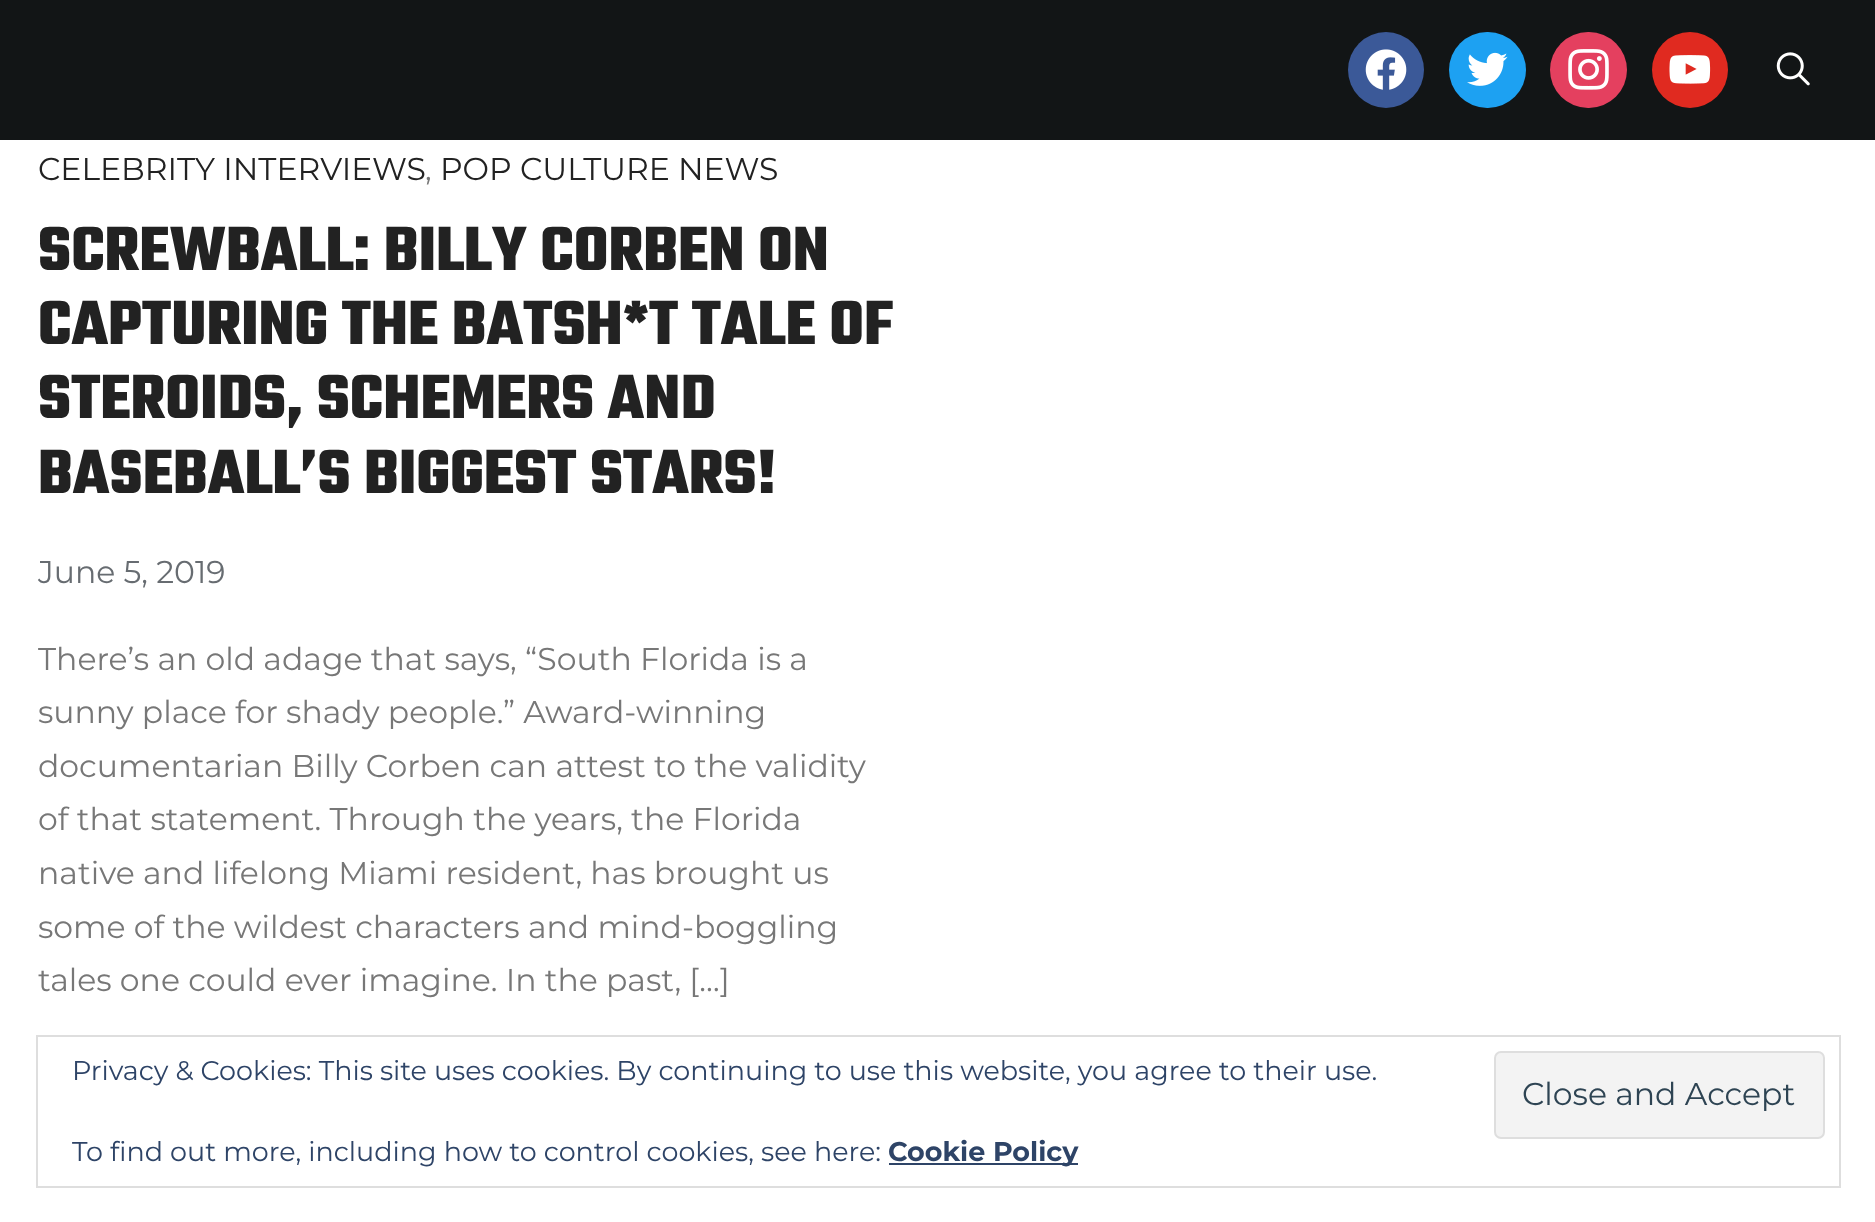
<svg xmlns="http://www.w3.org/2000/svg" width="1875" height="1222">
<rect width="100%" height="100%" fill="#fff"/>
<rect width="1875" height="140" fill="#121516"/>
<circle cx="1386" cy="70" r="38" fill="#3b5998"/>
<image x="1365" y="49" width="42" height="41" href="media/1.png"/>
<rect x="1449" y="32" width="77" height="76" rx="38" fill="#1da1f2"/>
<image x="1467" y="52" width="41" height="34" href="media/2.png"/>
<rect x="1550" y="32" width="77" height="76" rx="38" fill="#e4405f"/>
<image x="1568" y="49" width="41" height="41" href="media/3.png"/>
<circle cx="1690" cy="70" r="38" fill="#e02a20"/>
<image x="1669" y="55" width="42" height="29" href="media/4.png"/>
<image x="1776" y="52" width="34" height="34" href="media/5.png"/>
<text x="38" y="180" style="font-family:Montserrat;font-size:31.5px;fill:#222">CELEBRITY INTERVIEWS</text>
<text x="425" y="180" style="font-family:Montserrat;font-size:31.5px;fill:#777">,</text>
<text x="440" y="180" style="font-family:Montserrat;font-size:31.5px;fill:#222">POP CULTURE NEWS</text>
<text x="38" y="270" style="font-family:Teko;font-size:67.5px;font-weight:300;fill:#222">SCREWBALL: BILLY CORBEN ON</text>
<text x="38" y="344" style="font-family:Teko;font-size:67.5px;font-weight:300;fill:#222">CAPTURING THE BATSH*T TALE OF</text>
<text x="38" y="418" style="font-family:Teko;font-size:67.5px;font-weight:300;fill:#222">STEROIDS, SCHEMERS AND</text>
<text x="38" y="493" style="font-family:Teko;font-size:67.5px;font-weight:300;fill:#222">BASEBALL’S BIGGEST STARS!</text>
<text x="38" y="583" style="font-family:Montserrat;font-size:31.5px;fill:#676c71">June 5, 2019</text>
<text x="38" y="670" style="font-family:Montserrat;font-size:31.5px;fill:#777">There’s an old adage that says, “South Florida is a</text>
<text x="38" y="723" style="font-family:Montserrat;font-size:31.5px;fill:#777">sunny place for shady people.” Award-winning</text>
<text x="38" y="777" style="font-family:Montserrat;font-size:31.5px;fill:#777">documentarian Billy Corben can attest to the validity</text>
<text x="38" y="830" style="font-family:Montserrat;font-size:31.5px;fill:#777">of that statement. Through the years, the Florida</text>
<text x="38" y="884" style="font-family:Montserrat;font-size:31.5px;fill:#777">native and lifelong Miami resident, has brought us</text>
<text x="38" y="938" style="font-family:Montserrat;font-size:31.5px;fill:#777">some of the wildest characters and mind-boggling</text>
<text x="38" y="991" style="font-family:Montserrat;font-size:31.5px;fill:#777">tales one could ever imagine. In the past, […]</text>
<rect x="37" y="1036" width="1803" height="151" fill="none" stroke="#dedede" stroke-width="2"/>
<text x="72" y="1080" style="font-family:Montserrat;font-size:27px;fill:#2e4467">Privacy &amp; Cookies: This site uses cookies. By continuing to use this website, you agree to their use.</text>
<rect x="1495" y="1052" width="329" height="86" rx="6" fill="#f3f3f3" stroke="#dedede" stroke-width="2"/>
<text x="1522" y="1105" style="font-family:Montserrat;font-size:31.5px;fill:#2e4453">Close and Accept</text>
<text x="72" y="1161" style="font-family:Montserrat;font-size:27px;fill:#2e4467">To find out more, including how to control cookies, see here:</text>
<rect x="889" y="1163" width="189" height="2" fill="#2e4467"/>
<text x="888" y="1161" style="font-family:Montserrat;font-size:27px;font-weight:bold;fill:#2e4467">Cookie Policy</text>
</svg>
